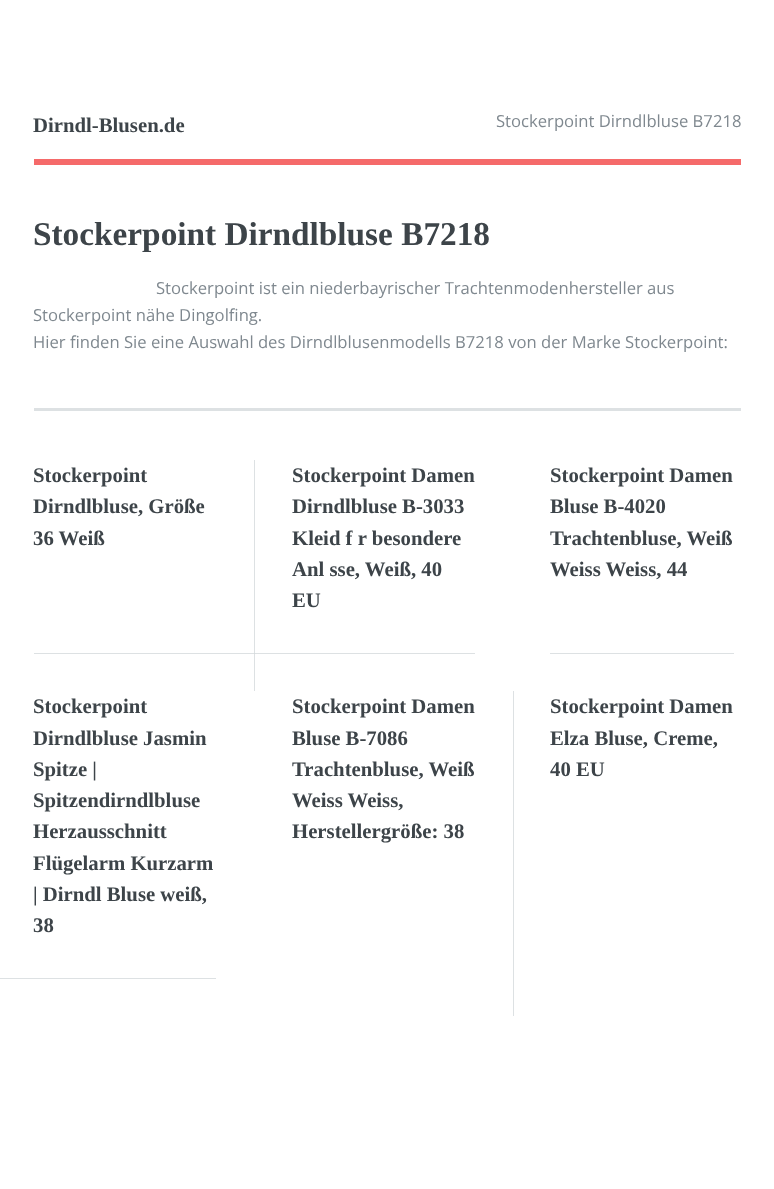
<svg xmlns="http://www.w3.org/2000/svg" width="774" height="1189">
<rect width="100%" height="100%" fill="#fff"/>
<rect x="34" y="653" width="441" height="1" fill="#dde1e3"/>
<rect x="34" y="159" width="707" height="6" fill="#f56a6a"/>
<text x="33" y="132" style="font-family:Liberation Serif;font-size:20.75px;font-weight:bold;fill:#3d4449">Dirndl-Blusen.de</text>
<text x="496" y="127" style="font-family:Open Sans;font-size:16.65px;fill:#7f888f">Stockerpoint Dirndlbluse B7218</text>
<text x="33" y="245" style="font-family:Liberation Serif;font-size:33.3px;font-weight:bold;fill:#3d4449">Stockerpoint Dirndlbluse B7218</text>
<text x="156" y="294" style="font-family:Open Sans;font-size:16.65px;fill:#7f888f">Stockerpoint ist ein niederbayrischer Trachtenmodenhersteller aus</text>
<text x="33" y="321" style="font-family:Open Sans;font-size:16.65px;fill:#7f888f">Stockerpoint nähe Dingolfing.</text>
<text x="33" y="348" style="font-family:Open Sans;font-size:16.65px;fill:#7f888f">Hier finden Sie eine Auswahl des Dirndlblusenmodells B7218 von der Marke Stockerpoint:</text>
<rect x="34" y="408" width="707" height="3" fill="#dde1e3"/>
<text x="33" y="482" style="font-family:Liberation Serif;font-size:20.75px;font-weight:bold;fill:#3d4449">Stockerpoint</text>
<text x="33" y="513" style="font-family:Liberation Serif;font-size:20.75px;font-weight:bold;fill:#3d4449">Dirndlbluse, Größe</text>
<text x="33" y="545" style="font-family:Liberation Serif;font-size:20.75px;font-weight:bold;fill:#3d4449">36 Weiß</text>
<rect x="254" y="460" width="1" height="231" fill="#dde1e3"/>
<rect x="254" y="653" width="1" height="1" fill="#d5dadc"/>
<text x="292" y="482" style="font-family:Liberation Serif;font-size:20.75px;font-weight:bold;fill:#3d4449">Stockerpoint Damen</text>
<text x="292" y="513" style="font-family:Liberation Serif;font-size:20.75px;font-weight:bold;fill:#3d4449">Dirndlbluse B-3033</text>
<text x="292" y="545" style="font-family:Liberation Serif;font-size:20.75px;font-weight:bold;fill:#3d4449">Kleid f r besondere</text>
<text x="292" y="576" style="font-family:Liberation Serif;font-size:20.75px;font-weight:bold;fill:#3d4449">Anl sse, Weiß, 40</text>
<text x="292" y="607" style="font-family:Liberation Serif;font-size:20.75px;font-weight:bold;fill:#3d4449">EU</text>
<text x="550" y="482" style="font-family:Liberation Serif;font-size:20.75px;font-weight:bold;fill:#3d4449">Stockerpoint Damen</text>
<text x="550" y="513" style="font-family:Liberation Serif;font-size:20.75px;font-weight:bold;fill:#3d4449">Bluse B-4020</text>
<text x="550" y="545" style="font-family:Liberation Serif;font-size:20.75px;font-weight:bold;fill:#3d4449">Trachtenbluse, Weiß</text>
<text x="550" y="576" style="font-family:Liberation Serif;font-size:20.75px;font-weight:bold;fill:#3d4449">Weiss Weiss, 44</text>
<rect x="550" y="653" width="184" height="1" fill="#dde1e3"/>
<text x="33" y="713" style="font-family:Liberation Serif;font-size:20.75px;font-weight:bold;fill:#3d4449">Stockerpoint</text>
<text x="33" y="745" style="font-family:Liberation Serif;font-size:20.75px;font-weight:bold;fill:#3d4449">Dirndlbluse Jasmin</text>
<text x="33" y="776" style="font-family:Liberation Serif;font-size:20.75px;font-weight:bold;fill:#3d4449">Spitze |</text>
<text x="33" y="807" style="font-family:Liberation Serif;font-size:20.75px;font-weight:bold;fill:#3d4449">Spitzendirndlbluse</text>
<text x="33" y="838" style="font-family:Liberation Serif;font-size:20.75px;font-weight:bold;fill:#3d4449">Herzausschnitt</text>
<text x="33" y="870" style="font-family:Liberation Serif;font-size:20.75px;font-weight:bold;fill:#3d4449">Flügelarm Kurzarm</text>
<text x="33" y="901" style="font-family:Liberation Serif;font-size:20.75px;font-weight:bold;fill:#3d4449">| Dirndl Bluse weiß,</text>
<text x="33" y="932" style="font-family:Liberation Serif;font-size:20.75px;font-weight:bold;fill:#3d4449">38</text>
<rect y="978" width="216" height="1" fill="#dde1e3"/>
<text x="292" y="713" style="font-family:Liberation Serif;font-size:20.75px;font-weight:bold;fill:#3d4449">Stockerpoint Damen</text>
<text x="292" y="745" style="font-family:Liberation Serif;font-size:20.75px;font-weight:bold;fill:#3d4449">Bluse B-7086</text>
<text x="292" y="776" style="font-family:Liberation Serif;font-size:20.75px;font-weight:bold;fill:#3d4449">Trachtenbluse, Weiß</text>
<text x="292" y="807" style="font-family:Liberation Serif;font-size:20.75px;font-weight:bold;fill:#3d4449">Weiss Weiss,</text>
<text x="292" y="838" style="font-family:Liberation Serif;font-size:20.75px;font-weight:bold;fill:#3d4449">Herstellergröße: 38</text>
<rect x="513" y="691" width="1" height="325" fill="#dde1e3"/>
<text x="550" y="713" style="font-family:Liberation Serif;font-size:20.75px;font-weight:bold;fill:#3d4449">Stockerpoint Damen</text>
<text x="550" y="745" style="font-family:Liberation Serif;font-size:20.75px;font-weight:bold;fill:#3d4449">Elza Bluse, Creme,</text>
<text x="550" y="776" style="font-family:Liberation Serif;font-size:20.75px;font-weight:bold;fill:#3d4449">40 EU</text>
</svg>
